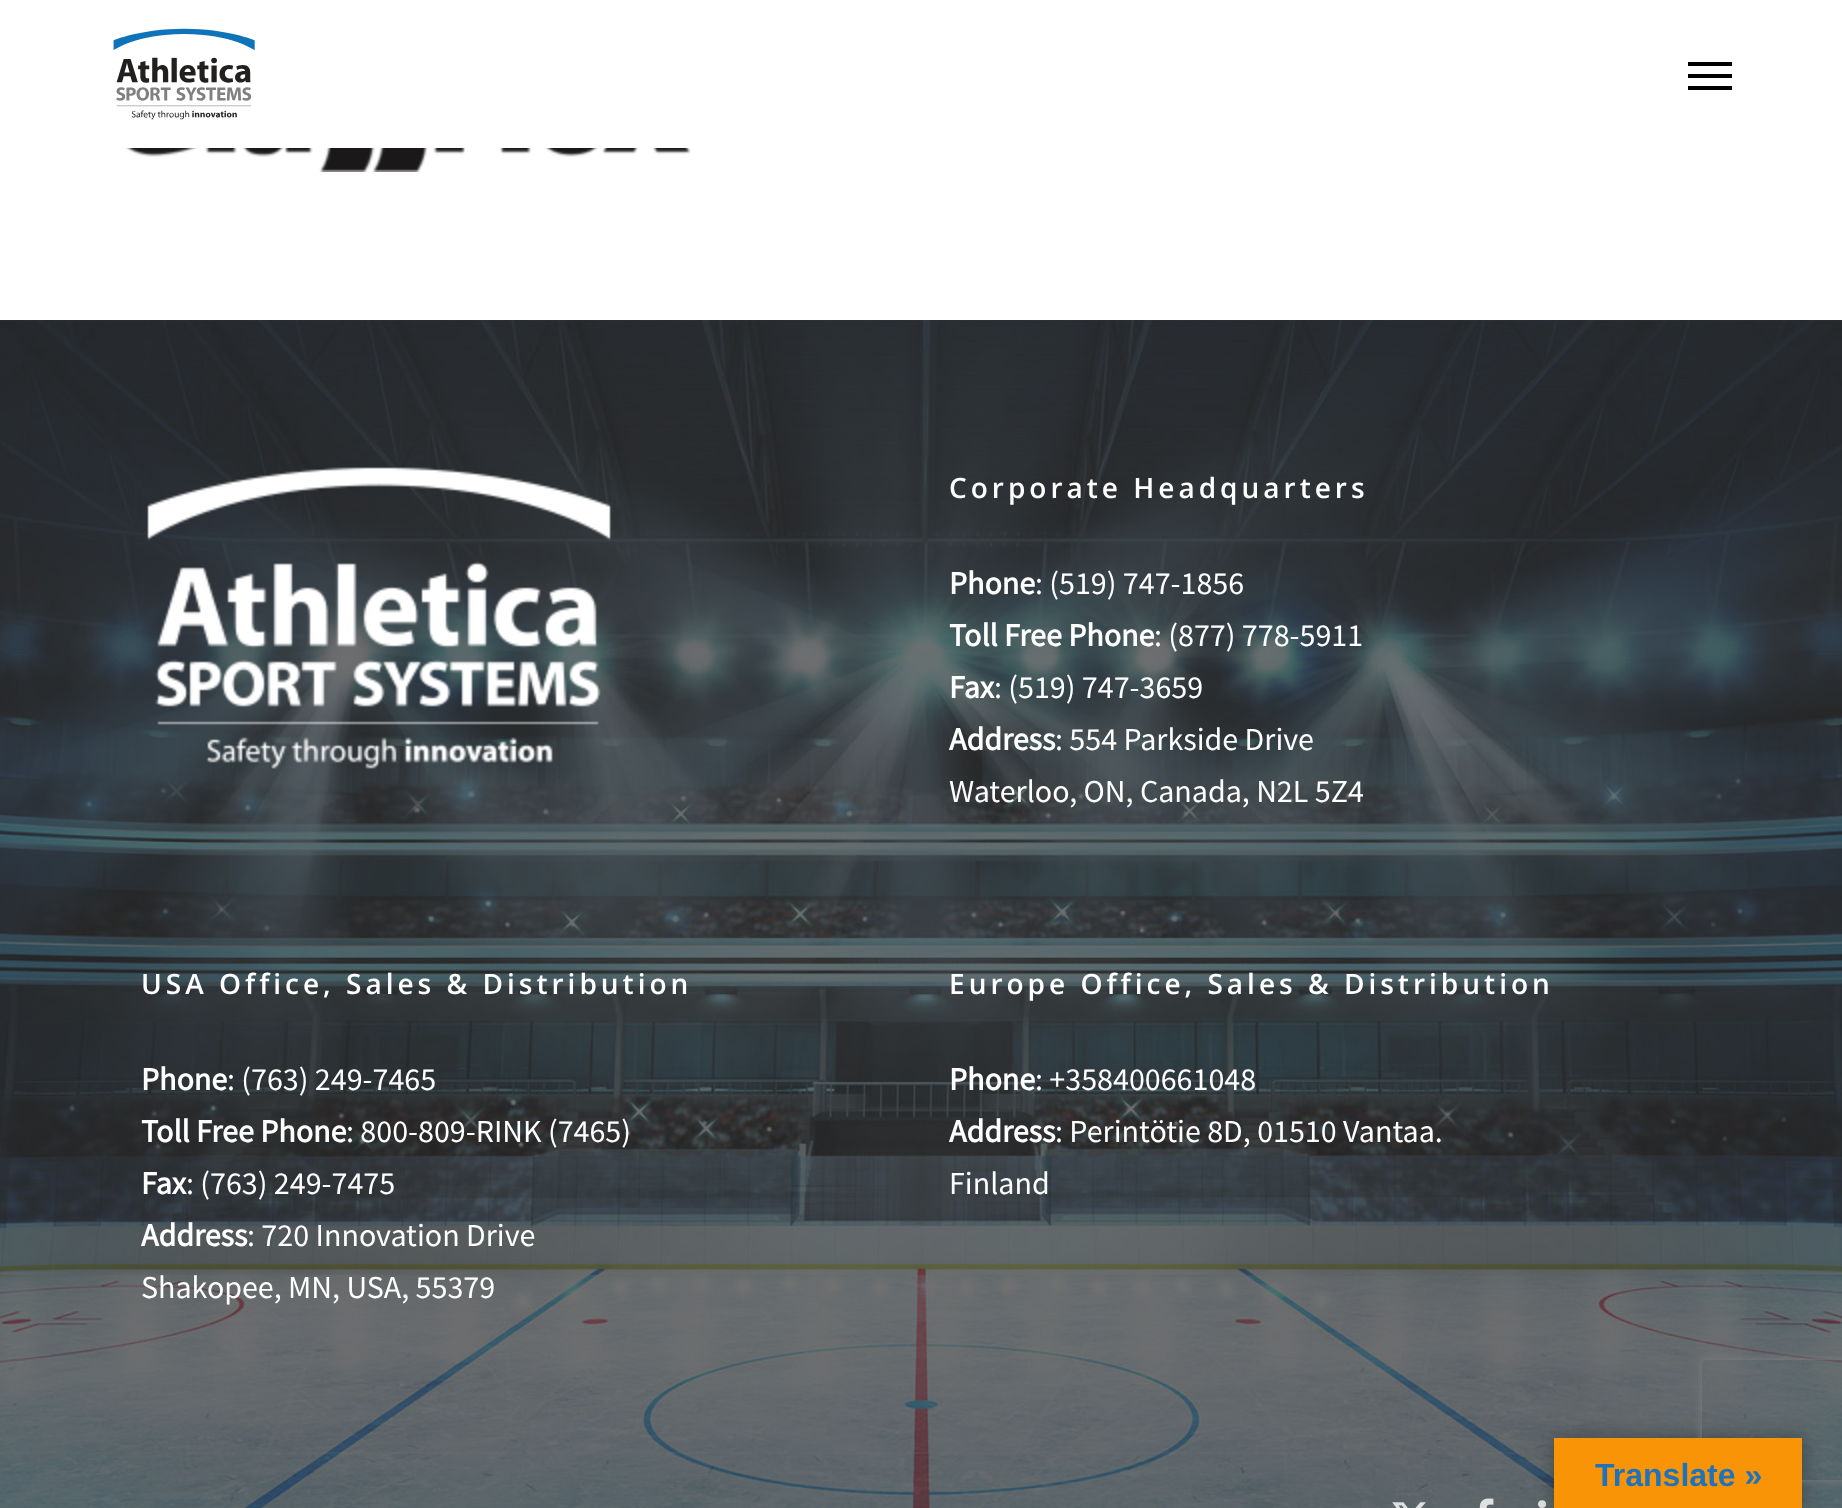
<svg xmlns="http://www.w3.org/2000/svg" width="1842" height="1508">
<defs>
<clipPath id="clip1"><path d="M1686 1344h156v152h-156zm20 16h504c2 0 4 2 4 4v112c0 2-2 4-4 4h-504c-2 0-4-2-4-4v-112c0-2 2-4 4-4z" clip-rule="evenodd"/></clipPath>
</defs>
<rect width="100%" height="100%" fill="#fff"/>
<image x="113" y="28" width="142" height="92" href="media/1.png"/>
<rect x="1688" y="62" width="44" height="4" fill="#000"/>
<rect x="1688" y="86" width="44" height="4" fill="#000"/>
<rect x="1688" y="74" width="44" height="4" fill="#000"/>
<image x="125" y="148" width="566" height="24" href="media/2.png"/>
<image x="0" y="320" width="1842" height="1188" href="media/3.png"/>
<image x="147" y="467" width="464" height="302" href="media/4.png"/>
<text x="949" y="498" style="font-family:Open Sans;font-size:28px;font-weight:600;letter-spacing:4px;fill:#fff">Corporate Headquarters</text>
<text x="949" y="594" style="font-family:Source Sans Pro;font-size:32px;font-weight:bold;fill:#fff">Phone</text>
<text x="1035" y="594" style="font-family:Source Sans Pro;font-size:32px;fill:#fff">: (519) 747-1856</text>
<text x="949" y="646" style="font-family:Source Sans Pro;font-size:32px;font-weight:bold;fill:#fff">Toll Free Phone</text>
<text x="1154" y="646" style="font-family:Source Sans Pro;font-size:32px;fill:#fff">: (877) 778-5911</text>
<text x="949" y="698" style="font-family:Source Sans Pro;font-size:32px;font-weight:bold;fill:#fff">Fax</text>
<text x="994" y="698" style="font-family:Source Sans Pro;font-size:32px;fill:#fff">: (519) 747-3659</text>
<text x="949" y="750" style="font-family:Source Sans Pro;font-size:32px;font-weight:bold;fill:#fff">Address</text>
<text x="1055" y="750" style="font-family:Source Sans Pro;font-size:32px;fill:#fff">: 554 Parkside Drive</text>
<text x="949" y="802" style="font-family:Source Sans Pro;font-size:32px;fill:#fff">Waterloo, ON, Canada, N2L 5Z4</text>
<text x="141" y="994" style="font-family:Open Sans;font-size:28px;font-weight:600;letter-spacing:4px;fill:#fff">USA Office, Sales &amp; Distribution</text>
<text x="141" y="1090" style="font-family:Source Sans Pro;font-size:32px;font-weight:bold;fill:#fff">Phone</text>
<text x="227" y="1090" style="font-family:Source Sans Pro;font-size:32px;fill:#fff">: (763) 249-7465</text>
<text x="141" y="1142" style="font-family:Source Sans Pro;font-size:32px;font-weight:bold;fill:#fff">Toll Free Phone</text>
<text x="346" y="1142" style="font-family:Source Sans Pro;font-size:32px;fill:#fff">: 800-809-RINK (7465)</text>
<text x="141" y="1194" style="font-family:Source Sans Pro;font-size:32px;font-weight:bold;fill:#fff">Fax</text>
<text x="186" y="1194" style="font-family:Source Sans Pro;font-size:32px;fill:#fff">: (763) 249-7475</text>
<text x="141" y="1246" style="font-family:Source Sans Pro;font-size:32px;font-weight:bold;fill:#fff">Address</text>
<text x="247" y="1246" style="font-family:Source Sans Pro;font-size:32px;fill:#fff">: 720 Innovation Drive</text>
<text x="141" y="1298" style="font-family:Source Sans Pro;font-size:32px;fill:#fff">Shakopee, MN, USA, 55379</text>
<text x="949" y="994" style="font-family:Open Sans;font-size:28px;font-weight:600;letter-spacing:4px;fill:#fff">Europe Office, Sales &amp; Distribution</text>
<text x="949" y="1090" style="font-family:Source Sans Pro;font-size:32px;font-weight:bold;fill:#fff">Phone</text>
<text x="1035" y="1090" style="font-family:Source Sans Pro;font-size:32px;fill:#fff">: +358400661048</text>
<text x="949" y="1142" style="font-family:Source Sans Pro;font-size:32px;font-weight:bold;fill:#fff">Address</text>
<text x="1055" y="1142" style="font-family:Source Sans Pro;font-size:32px;fill:#fff">: Perintötie 8D, 01510 Vantaa.</text>
<text x="949" y="1194" style="font-family:Source Sans Pro;font-size:32px;fill:#fff">Finland</text>
<rect y="1452" width="1842" height="2" fill="#7070702e"/>
<image x="1392" y="1502" width="34" height="6" href="media/5.png"/>
<image x="1479" y="1498" width="15" height="10" href="media/6.png"/>
<image x="1538" y="1500" width="9" height="8" href="media/7.png"/>
<rect x="1554" y="1438" width="248" height="70" fill="#0000004d" filter="blur(9px)"/>
<g clip-path="url(#clip1)">
<rect x="1702" y="1360" width="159" height="120" rx="4" fill="#808080" filter="blur(5px)"/>
</g>
<rect x="1554" y="1438" width="248" height="70" fill="#f89406"/>
<text x="1595" y="1486" style="font-family:Liberation Sans;font-size:32px;font-weight:bold;fill:#1e73be">Translate »</text>
</svg>
